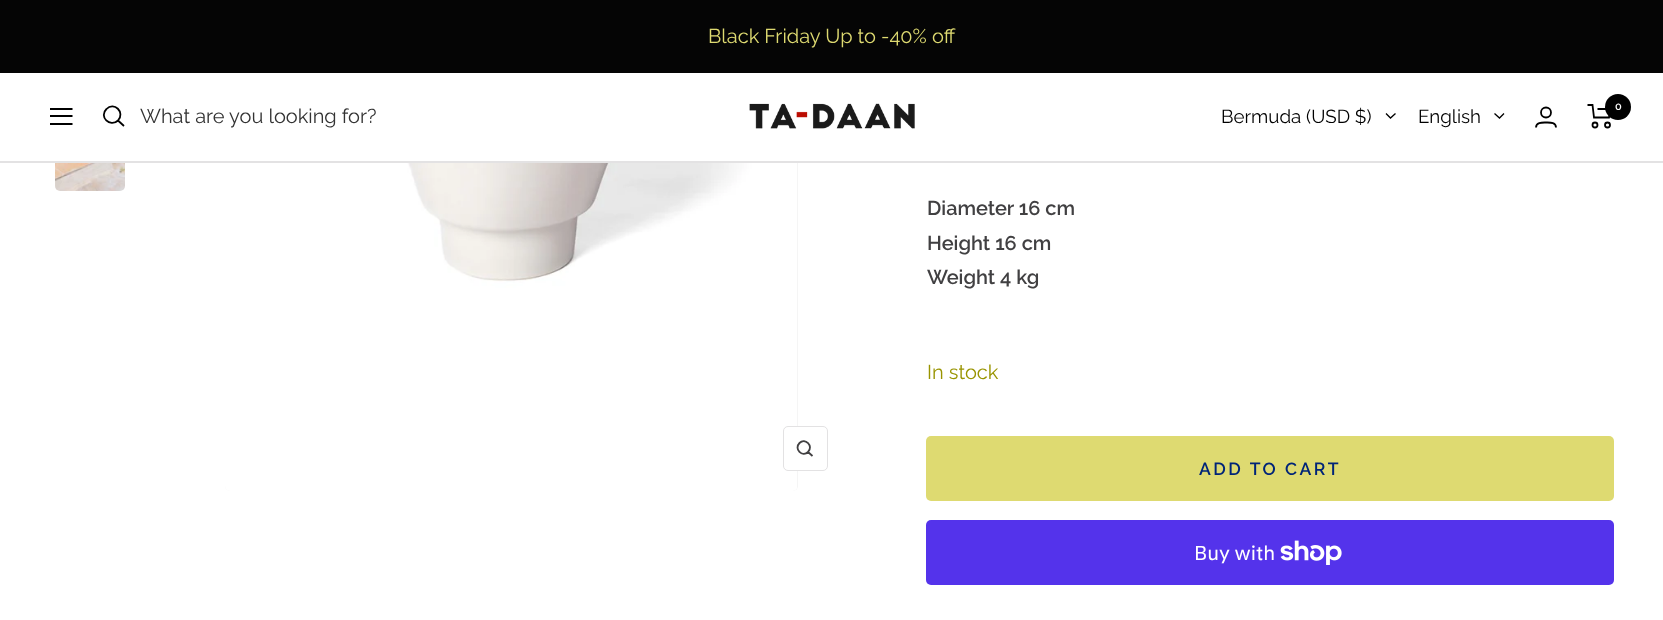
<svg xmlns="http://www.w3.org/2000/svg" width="1663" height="620">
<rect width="100%" height="100%" fill="#fff"/>
<rect x="225" y="-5" width="573" height="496" rx="5" fill="#f5f5f5"/>
<rect width="1663" height="73" fill="#050505"/>
<text x="708" y="43" style="font-family:Raleway;font-size:20px;fill:#deda71">Black Friday Up to -40% off</text>
<path d="M0 161v2h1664v-89v87z" fill="#e3e2e3"/>
<rect x="225" y="73" width="573" height="88" fill="#fff"/>
<path d="M50 109h22.5m-22.5 15h22.5zm0-8h22.5z" fill="none" stroke="#000" stroke-width="1.8"/>
<path d="M118 120.5c7.5-8-4-19.5-11.5-11.5c-8 7.5 3.5 19 11.5 11.5zm0 0l6 5.5" fill="none" stroke="#000" stroke-width="1.8"/>
<text x="140" y="123" style="font-family:Raleway;font-size:20px;fill:#333">What are you looking for?</text>
<image x="749" y="103" width="166" height="26" href="media/1.png"/>
<text x="1221" y="123" style="font-family:Raleway;font-size:18.75px;fill:#000">Bermuda (USD $)</text>
<path d="M1386 113.5l4.5 4.5l5-4.5" fill="none" stroke="#000" stroke-width="1.3"/>
<text x="1418" y="123" style="font-family:Raleway;font-size:18.75px;fill:#000">English</text>
<path d="M1494.5 113.5l5 4.5l4.5-4.5" fill="none" stroke="#000" stroke-width="1.3"/>
<circle cx="1546" cy="112.5" r="5" fill="none" stroke="#000" stroke-width="1.8"/>
<path d="M1536 127.5c0-5.5 6.5-5 10-5c4 0 10-.5 10 5" fill="none" stroke="#000" stroke-width="1.8"/>
<path d="M1587.5 105h5l1.5 12.5h15l2-8.5h-13.5" fill="none" stroke="#000" stroke-width="1.8"/>
<circle cx="1595" cy="125" r="2.5" fill="none" stroke="#000" stroke-width="1.8"/>
<circle cx="1607.5" cy="125" r="2.5" fill="none" stroke="#000" stroke-width="1.8"/>
<circle cx="1618" cy="107" r="13" fill="#000"/>
<text x="1615" y="110" style="font-family:Raleway;font-size:11px;font-weight:600;fill:#fff">0</text>
<image x="55" y="163" width="70" height="28" href="media/2.png"/>
<image x="225" y="163" width="572" height="328" href="media/3.png"/>
<rect x="783.5" y="426.5" width="44" height="44" rx="4.5" fill="#fff" stroke="#e3e2e3"/>
<path d="M808 452c6-6-3-14.5-8.5-9c-6 6 3 14.5 8.5 9zm0 0l4.5 4" fill="none" stroke="#414042" stroke-width="1.8"/>
<text x="927" y="215" style="font-family:Raleway;font-size:20px;font-weight:600;fill:#414042">Diameter 16 cm</text>
<text x="927" y="250" style="font-family:Raleway;font-size:20px;font-weight:600;fill:#414042">Height 16 cm</text>
<text x="927" y="284" style="font-family:Raleway;font-size:20px;font-weight:600;fill:#414042">Weight 4 kg</text>
<text x="927" y="379" style="font-family:Raleway;font-size:20px;fill:#999400">In stock</text>
<rect x="926" y="436" width="688" height="65" rx="5" fill="#deda71"/>
<text x="1199" y="475" style="font-family:Raleway;font-size:17.5px;font-weight:600;letter-spacing:2.5px;fill:#002478">ADD TO CART</text>
<rect x="926" y="520" width="688" height="65" rx="5" fill="#5433eb"/>
<text x="1194" y="560" style="font-family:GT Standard;font-size:20px;fill:#fff">Buy with</text>
<image x="1280" y="540" width="62" height="25" href="media/4.png"/>
</svg>
